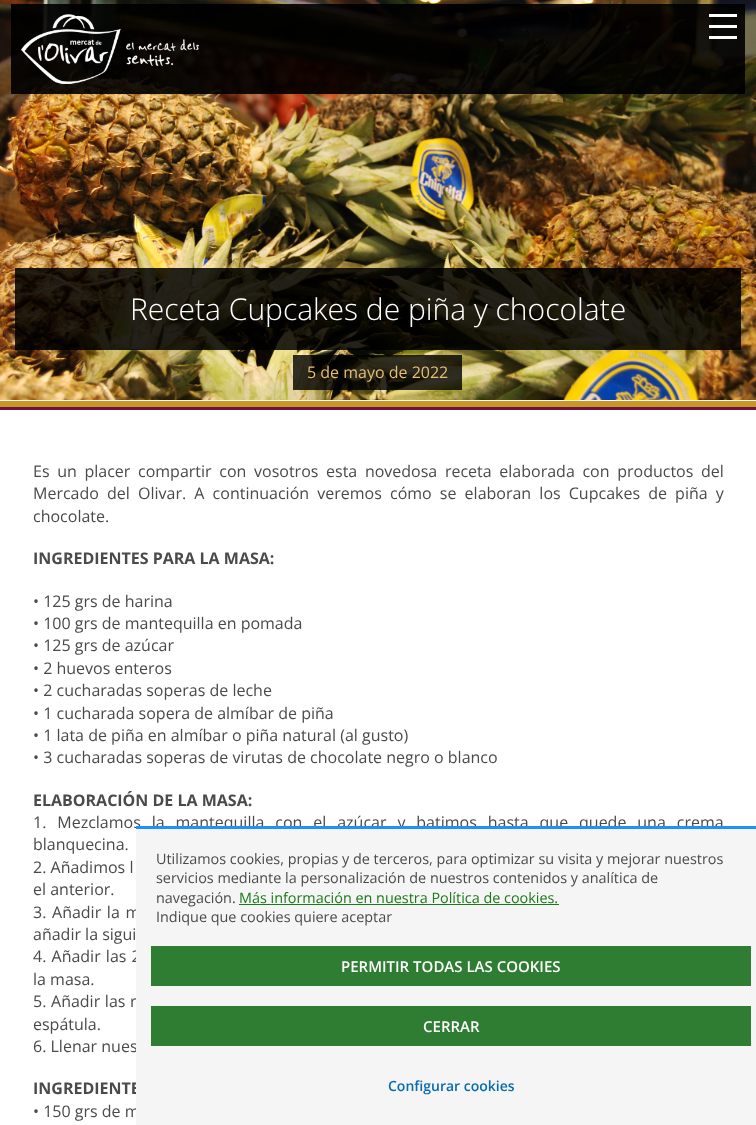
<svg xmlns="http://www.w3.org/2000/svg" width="756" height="1125">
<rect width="100%" height="100%" fill="#fff"/>
<image x="0" y="0" width="756" height="400" href="media/2.png"/>
<rect x="11" y="4" width="734" height="90" fill="#000000e6"/>
<rect x="709" y="14" width="28" height="3" fill="#fff"/>
<rect x="709" y="25" width="28" height="3" fill="#fff"/>
<rect x="709" y="36" width="28" height="3" fill="#fff"/>
<image x="21" y="14" width="179" height="70" href="media/1.png"/>
<rect x="15" y="268" width="726" height="82" fill="#000000d9"/>
<text x="130" y="320" style="font-family:Open Sans;font-size:30px;font-weight:300;fill:#fff">Receta Cupcakes de piña y chocolate</text>
<rect x="293" y="355" width="169" height="35" fill="#000000cc"/>
<text x="307" y="378" style="font-family:Open Sans;font-size:16px;fill:#e6bf72">5 de mayo de 2022</text>
<rect y="407" width="756" height="3" fill="#67143f"/>
<rect y="401" width="756" height="6" fill="#cd9525"/>
<text x="33" y="477" word-spacing="3.5" style="font-family:Open Sans;font-size:16px;fill:#4a4a4a">Es un placer compartir con vosotros esta novedosa receta elaborada con productos del</text>
<text x="33" y="499" word-spacing="4" style="font-family:Open Sans;font-size:16px;fill:#4a4a4a">Mercado del Olivar. A continuación veremos cómo se elaboran los Cupcakes de piña y</text>
<text x="33" y="522" style="font-family:Open Sans;font-size:16px;fill:#4a4a4a">chocolate.</text>
<text x="33" y="564" style="font-family:Open Sans;font-size:16px;font-weight:bold;fill:#4a4a4a">INGREDIENTES PARA LA MASA:</text>
<text x="33" y="607" style="font-family:Open Sans;font-size:16px;fill:#4a4a4a">• 125 grs de harina</text>
<text x="33" y="629" style="font-family:Open Sans;font-size:16px;fill:#4a4a4a">• 100 grs de mantequilla en pomada</text>
<text x="33" y="651" style="font-family:Open Sans;font-size:16px;fill:#4a4a4a">• 125 grs de azúcar</text>
<text x="33" y="674" style="font-family:Open Sans;font-size:16px;fill:#4a4a4a">• 2 huevos enteros</text>
<text x="33" y="696" style="font-family:Open Sans;font-size:16px;fill:#4a4a4a">• 2 cucharadas soperas de leche</text>
<text x="33" y="719" style="font-family:Open Sans;font-size:16px;fill:#4a4a4a">• 1 cucharada sopera de almíbar de piña</text>
<text x="33" y="741" style="font-family:Open Sans;font-size:16px;fill:#4a4a4a">• 1 lata de piña en almíbar o piña natural (al gusto)</text>
<text x="33" y="763" style="font-family:Open Sans;font-size:16px;fill:#4a4a4a">• 3 cucharadas soperas de virutas de chocolate negro o blanco</text>
<text x="33" y="806" style="font-family:Open Sans;font-size:16px;font-weight:bold;fill:#4a4a4a">ELABORACIÓN DE LA MASA:</text>
<text x="33" y="828" word-spacing="6.75" style="font-family:Open Sans;font-size:16px;fill:#4a4a4a">1. Mezclamos la mantequilla con el azúcar y batimos hasta que quede una crema</text>
<text x="33" y="850" style="font-family:Open Sans;font-size:16px;fill:#4a4a4a">blanquecina.</text>
<text x="33" y="873" style="font-family:Open Sans;font-size:16px;fill:#4a4a4a">2. Añadimos l</text>
<text x="33" y="895" style="font-family:Open Sans;font-size:16px;fill:#4a4a4a">el anterior.</text>
<text x="33" y="918" word-spacing="1.5" style="font-family:Open Sans;font-size:16px;fill:#4a4a4a">3. Añadir la m</text>
<text x="33" y="940" style="font-family:Open Sans;font-size:16px;fill:#4a4a4a">añadir la sigui</text>
<text x="33" y="962" word-spacing="1" style="font-family:Open Sans;font-size:16px;fill:#4a4a4a">4. Añadir las 2</text>
<text x="33" y="985" style="font-family:Open Sans;font-size:16px;fill:#4a4a4a">la masa.</text>
<text x="33" y="1007" word-spacing="0.5" style="font-family:Open Sans;font-size:16px;fill:#4a4a4a">5. Añadir las r</text>
<text x="33" y="1030" style="font-family:Open Sans;font-size:16px;fill:#4a4a4a">espátula.</text>
<text x="33" y="1052" style="font-family:Open Sans;font-size:16px;fill:#4a4a4a">6. Llenar nues</text>
<text x="33" y="1094" style="font-family:Open Sans;font-size:16px;font-weight:bold;fill:#4a4a4a">INGREDIENTE</text>
<text x="33" y="1117" style="font-family:Open Sans;font-size:16px;fill:#4a4a4a">• 150 grs de m</text>
<rect x="136" y="829" width="620" height="296" fill="#f5f5f5"/>
<rect x="136" y="826" width="620" height="3" fill="#1e90ff"/>
<text x="156" y="864" style="font-family:Open Sans;font-size:14.4px;fill:#4a4a4a">Utilizamos cookies, propias y de terceros, para optimizar su visita y mejorar nuestros</text>
<text x="156" y="883" style="font-family:Open Sans;font-size:14.4px;fill:#4a4a4a">servicios mediante la personalización de nuestros contenidos y analítica de</text>
<text x="156" y="903" style="font-family:Open Sans;font-size:14.4px;fill:#4a4a4a">navegación.</text>
<text x="239" y="903" style="font-family:Open Sans;font-size:14.4px;fill:#197a16">Más información en nuestra Política de cookies.</text>
<rect x="239" y="904" width="320" height="1" fill="#197a16"/>
<text x="156" y="922" style="font-family:Open Sans;font-size:14.4px;fill:#4a4a4a">Indique que cookies quiere aceptar</text>
<rect x="151" y="946" width="600" height="40" fill="#2e7d32"/>
<text x="341" y="972" style="font-family:Open Sans;font-size:15px;font-weight:600;fill:#fff">PERMITIR TODAS LAS COOKIES</text>
<rect x="151" y="1006" width="600" height="40" fill="#2e7d32"/>
<text x="423" y="1032" style="font-family:Open Sans;font-size:15px;font-weight:600;fill:#fff">CERRAR</text>
<text x="388" y="1091" style="font-family:Open Sans;font-size:14px;font-weight:600;fill:#076caf">Configurar cookies</text>
</svg>
